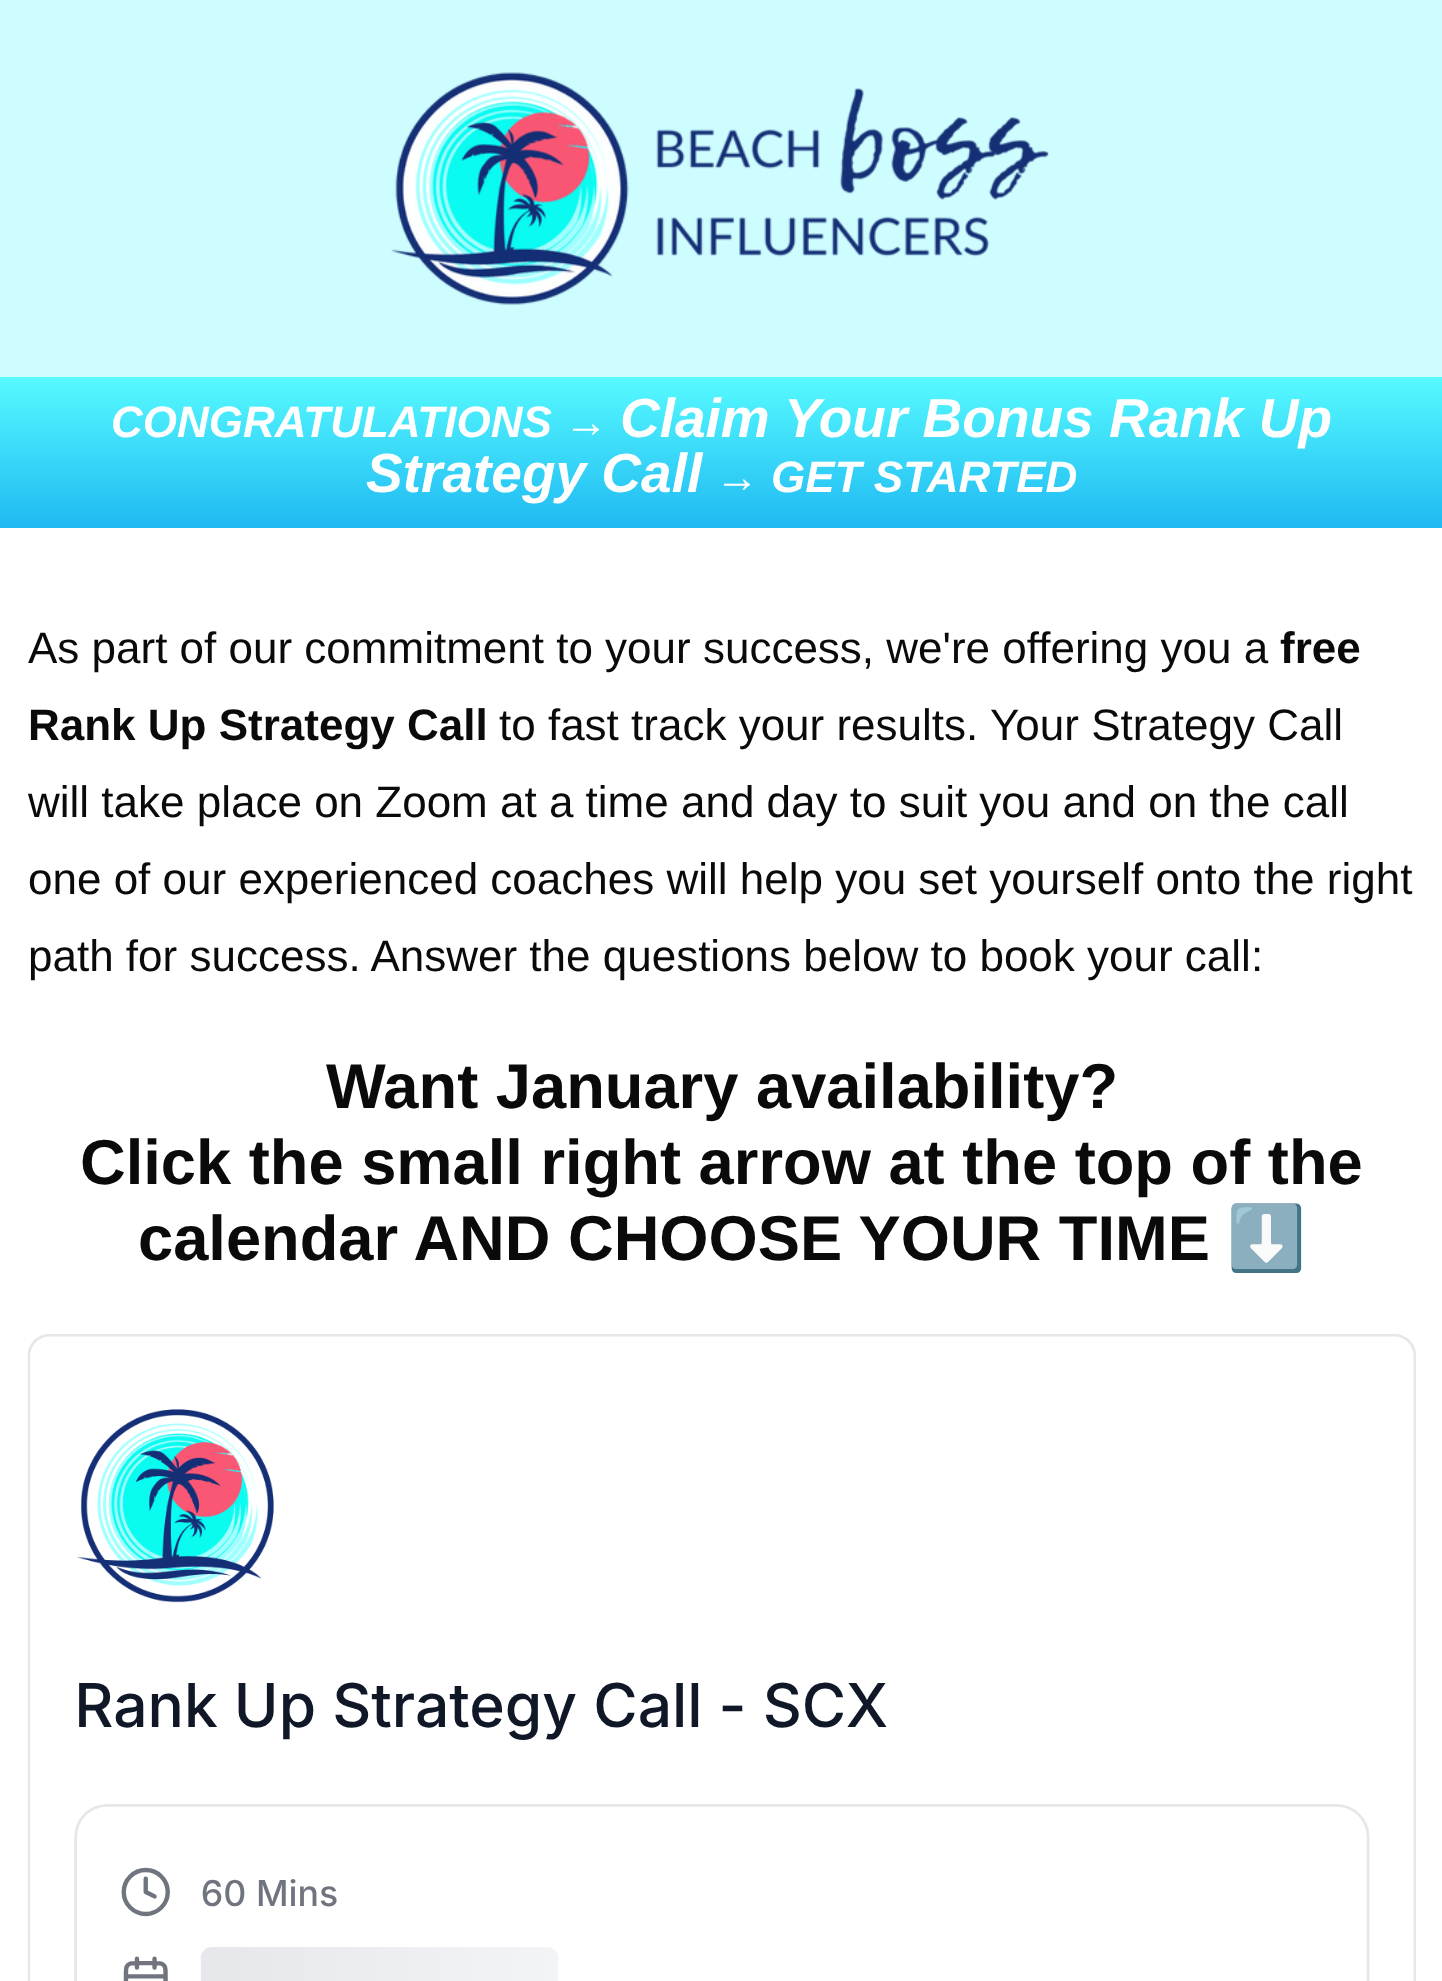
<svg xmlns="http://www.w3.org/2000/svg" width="1442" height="1981">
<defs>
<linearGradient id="g1" gradientUnits="userSpaceOnUse" x1="722" y1="377" x2="722" y2="528"><stop offset="0" stop-color="#56faff"/><stop offset="1" stop-color="#1fb9f2"/></linearGradient>
</defs>
<rect width="100%" height="100%" fill="#fff"/>
<rect width="1442" height="377" fill="#cefdff"/>
<image x="391" y="72" width="658" height="233" href="media/1.png"/>
<rect y="377" width="1442" height="151" fill="url(#g1)"/>
<text x="111" y="437" style="font-family:Arimo;font-size:44px;font-weight:bold;font-style:italic;fill:#fff">CONGRATULATIONS</text>
<text x="564" y="437" style="font-family:Liberation Sans;font-size:44px;font-weight:bold;font-style:italic;fill:#fff">→</text>
<text x="620" y="437" style="font-family:Arimo;font-size:55px;font-weight:bold;font-style:italic;fill:#fff">Claim Your Bonus Rank Up</text>
<text x="366" y="492" style="font-family:Arimo;font-size:55px;font-weight:bold;font-style:italic;fill:#fff">Strategy Call</text>
<text x="715" y="492" style="font-family:Liberation Sans;font-size:44px;font-weight:bold;font-style:italic;fill:#fff">→</text>
<text x="771" y="492" style="font-family:Arimo;font-size:44px;font-weight:bold;font-style:italic;fill:#fff">GET STARTED</text>
<text x="28" y="663" style="font-family:Arimo;font-size:44px;fill:#0a0a0a">As part of our commitment to your success, we're offering you a</text>
<text x="1280" y="663" style="font-family:Arimo;font-size:44px;font-weight:bold;fill:#0a0a0a">free</text>
<text x="28" y="740" style="font-family:Arimo;font-size:44px;font-weight:bold;fill:#0a0a0a">Rank Up Strategy Call</text>
<text x="499" y="740" style="font-family:Arimo;font-size:44px;fill:#0a0a0a">to fast track your results.</text>
<text x="990" y="740" style="font-family:Arimo;font-size:44px;fill:#0a0a0a">Your Strategy Call</text>
<text x="28" y="817" style="font-family:Arimo;font-size:44px;fill:#0a0a0a">will take place on Zoom at a time and day to suit you and on the call</text>
<text x="28" y="894" style="font-family:Arimo;font-size:44px;fill:#0a0a0a">one of our experienced coaches will help you set yourself onto the right</text>
<text x="28" y="971" style="font-family:Arimo;font-size:44px;fill:#0a0a0a">path for success. Answer the questions below to book your call:</text>
<text x="326" y="1108" style="font-family:Arimo;font-size:63.25px;font-weight:bold;fill:#0a0a0a">Want January availability?</text>
<text x="80" y="1184" style="font-family:Arimo;font-size:63.25px;font-weight:bold;fill:#0a0a0a">Click the small right arrow at the top of the</text>
<text x="138" y="1260" style="font-family:Arimo;font-size:63.25px;font-weight:bold;fill:#0a0a0a">calendar AND CHOOSE YOUR TIME</text>
<text x="1227" y="1260" style="font-family:Noto Color Emoji;font-size:63.25px;font-weight:bold;fill:#0a0a0a">⬇️</text>
<image x="27" y="1334" width="1389" height="647" href="media/2.png"/>
</svg>
